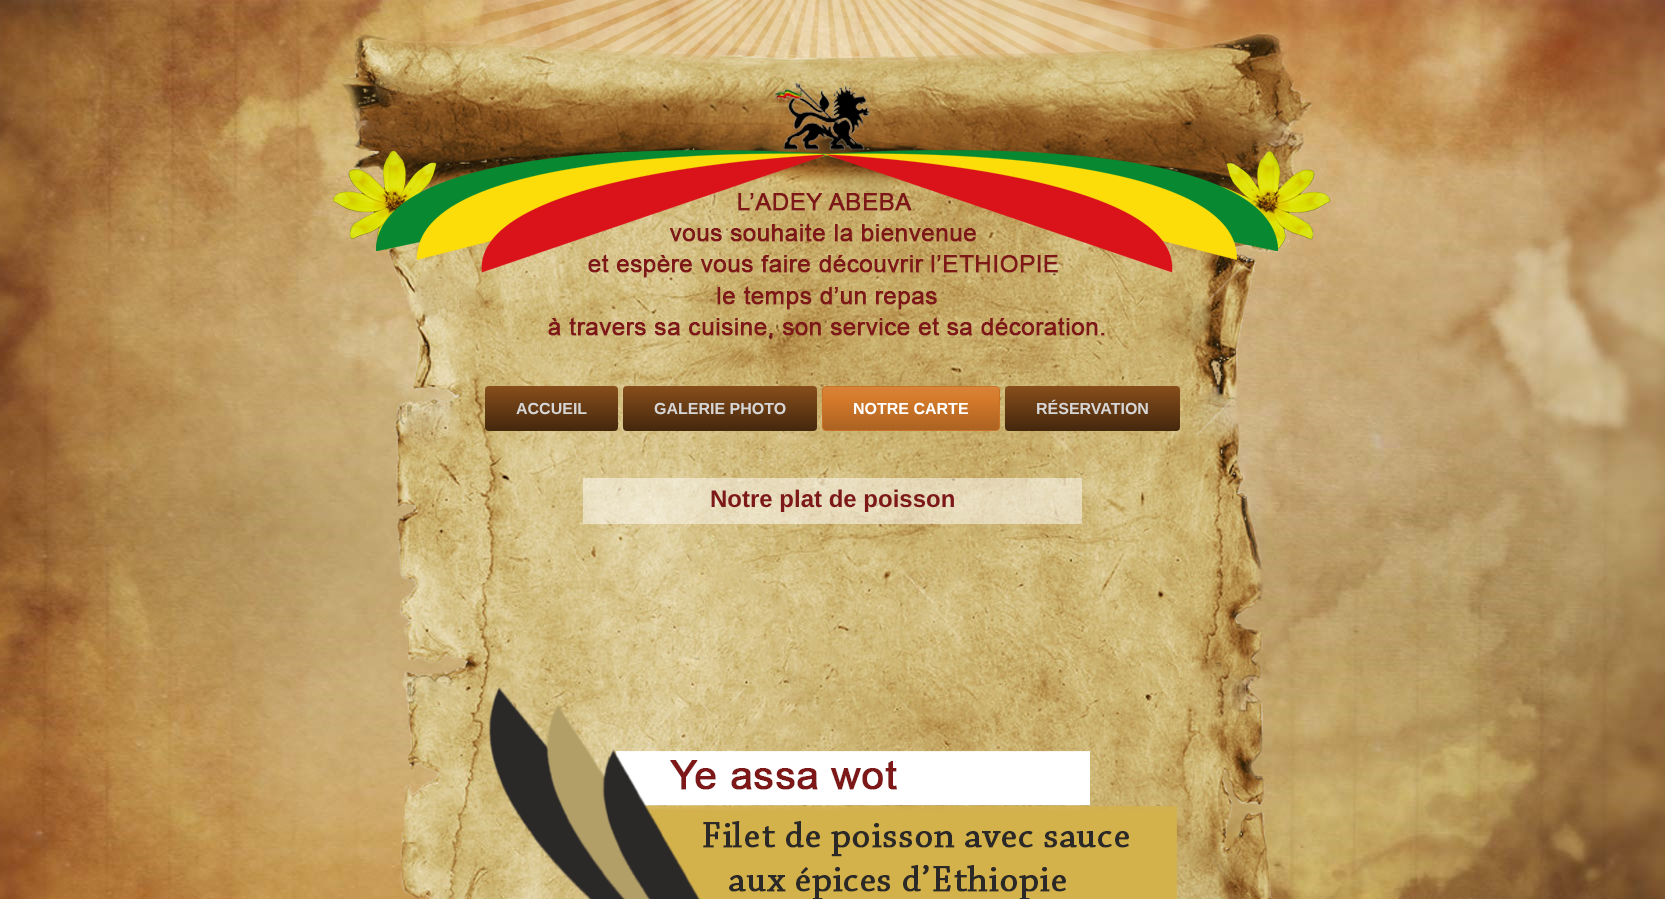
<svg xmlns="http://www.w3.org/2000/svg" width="1665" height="899">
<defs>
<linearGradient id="g1" gradientUnits="userSpaceOnUse" x1="552" y1="386" x2="552" y2="431"><stop offset="0" stop-color="#884e1b"/><stop offset="1" stop-color="#44270d"/></linearGradient>
<linearGradient id="g2" gradientUnits="userSpaceOnUse" x1="720" y1="386" x2="720" y2="431"><stop offset="0" stop-color="#884e1b"/><stop offset="1" stop-color="#44270d"/></linearGradient>
<linearGradient id="g3" gradientUnits="userSpaceOnUse" x1="911" y1="386" x2="911" y2="431"><stop offset="0" stop-color="#d8843b"/><stop offset="0.29" stop-color="#d57a2a"/><stop offset="1" stop-color="#aa6122"/></linearGradient>
<linearGradient id="g4" gradientUnits="userSpaceOnUse" x1="1093" y1="386" x2="1093" y2="431"><stop offset="0" stop-color="#884e1b"/><stop offset="1" stop-color="#44270d"/></linearGradient>
</defs>
<rect width="100%" height="100%" fill="#fff"/>
<image x="0" y="0" width="1665" height="899" href="media/1.png"/>
<image x="333" y="30" width="998" height="869" href="media/2.png"/>
<rect x="485" y="386" width="133" height="45" rx="4" fill="url(#g1)"/>
<text x="516" y="414" style="font-family:Liberation Sans;font-size:16px;font-weight:bold;fill:#d6d6d6">ACCUEIL</text>
<rect x="623" y="386" width="194" height="45" rx="4" fill="url(#g2)"/>
<text x="654" y="414" style="font-family:Liberation Sans;font-size:16px;font-weight:bold;fill:#d6d6d6">GALERIE PHOTO</text>
<rect x="822.5" y="386.5" width="177" height="44" rx="3.5" fill="url(#g3)" stroke="#c87228"/>
<text x="853" y="414" style="font-family:Liberation Sans;font-size:16px;font-weight:bold;fill:#fff">NOTRE CARTE</text>
<rect x="1005" y="386" width="175" height="45" rx="4" fill="url(#g4)"/>
<text x="1036" y="414" style="font-family:Liberation Sans;font-size:16px;font-weight:bold;fill:#d6d6d6">RÉSERVATION</text>
<rect x="583" y="478" width="499" height="46" fill="#ffffff80"/>
<text x="710" y="507" style="font-family:Liberation Sans;font-size:24px;font-weight:bold;fill:#7c1818">Notre plat de poisson</text>
<image x="488" y="687" width="689" height="212" href="media/3.png"/>
</svg>
